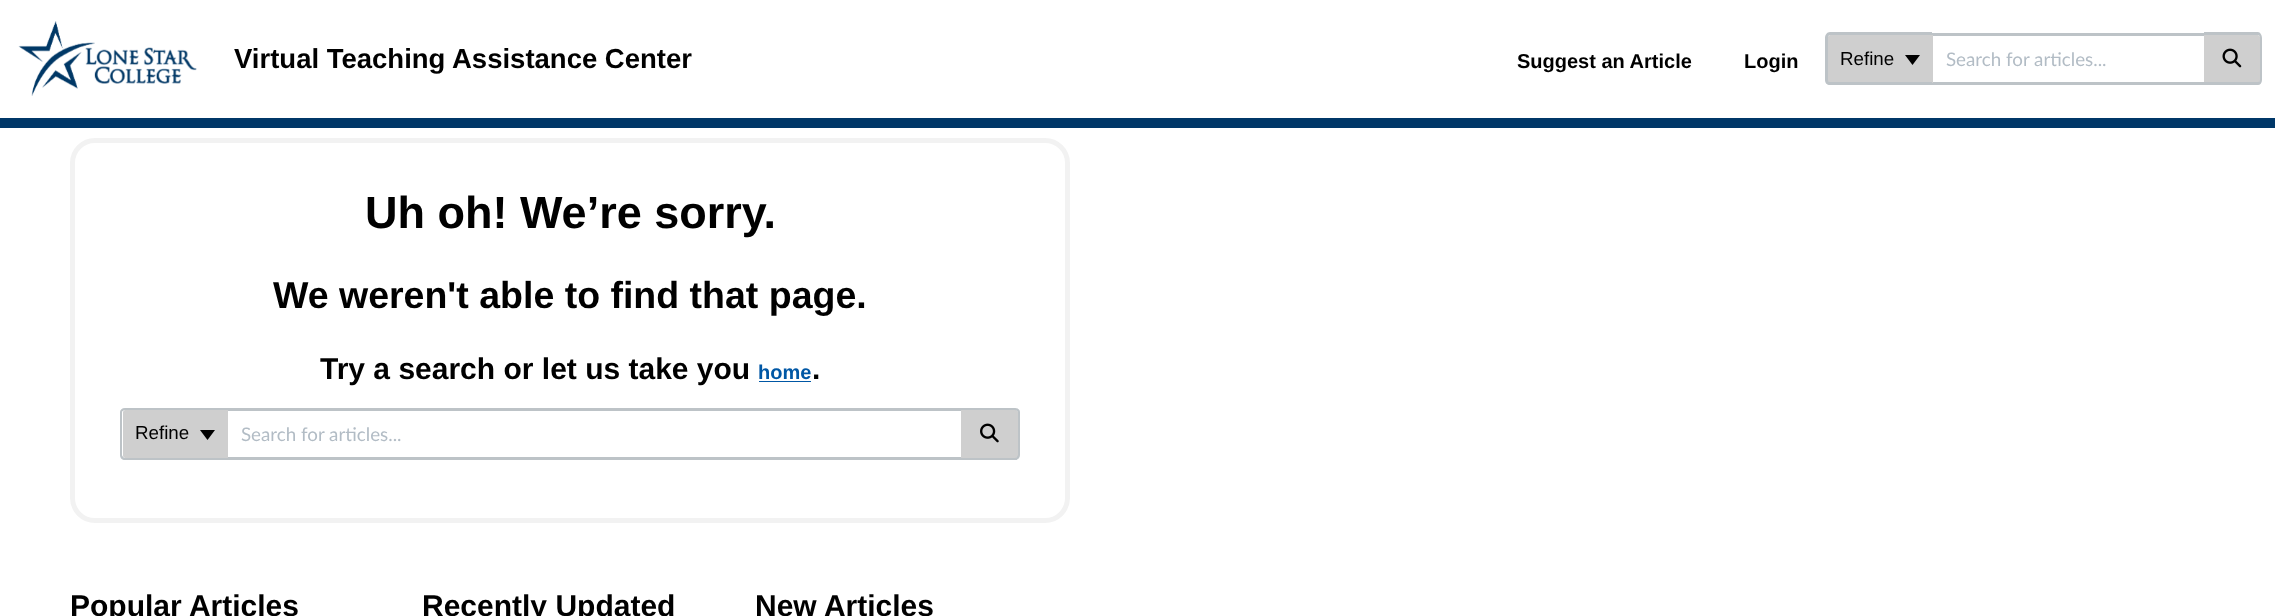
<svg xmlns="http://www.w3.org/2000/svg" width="2275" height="616">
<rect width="100%" height="100%" fill="#fff"/>
<rect y="118" width="2275" height="10" fill="#003768"/>
<image x="18" y="21" width="179" height="75" href="media/1.png"/>
<text x="234" y="68" style="font-family:Liberation Sans;font-size:27.5px;font-weight:bold;fill:#000">Virtual Teaching Assistance Center</text>
<text x="1517" y="68" style="font-family:Liberation Sans;font-size:20px;font-weight:bold;fill:#000">Suggest an Article</text>
<text x="1744" y="68" style="font-family:Liberation Sans;font-size:20px;font-weight:bold;fill:#000">Login</text>
<rect x="1930.5" y="34.5" width="276" height="49" fill="none" stroke="#bdc3c7" stroke-width="3"/>
<path d="M1830.5 35h102.5v48h-102.5c-1.5 0-2.5-1-2.5-2.5v-43c0-1.5 1-2.5 2.5-2.5z" fill="#cfcfcf"/>
<path d="M1830 32h102v53h-102c-3 0-5-2-5-5v-42c0-3 2-6 5-6zm0 3h102v47h-102c-1 0-2-1-2-2v-42c0-2 1-3 2-3z" fill="#bdc3c7" fill-rule="evenodd"/>
<text x="1840" y="65" style="font-family:Liberation Sans;font-size:18.75px;fill:#000">Refine</text>
<path d="M1905 55h15l-7.5 10z" fill="#000"/>
<text x="1946" y="66" style="font-family:Lato;font-size:18.75px;fill:#b2bcc5">Search for articles...</text>
<path d="M2204 35h53.5c1.5 0 2.5 1 2.5 2.5v43c0 1.5-1 2.5-2.5 2.5h-53.5z" fill="#cfcfcf"/>
<path d="M2204 32h54c2 0 4 3 4 6v42c0 3-2 5-4 5h-54zm0 3h54c1 0 2 1 2 3v42c0 1-1 2-2 2h-54z" fill="#bdc3c7" fill-rule="evenodd"/>
<image x="2222" y="48" width="20" height="20" href="media/2.png"/>
<rect x="72.5" y="140.5" width="995" height="380" rx="22.5" fill="none" stroke="#f2f2f2" stroke-width="5"/>
<text x="365" y="228" style="font-family:Liberation Sans;font-size:45px;font-weight:bold;fill:#000">Uh oh! We’re sorry.</text>
<text x="273" y="308" style="font-family:Liberation Sans;font-size:37.5px;font-weight:bold;fill:#000">We weren't able to find that page.</text>
<text x="320" y="379" style="font-family:Liberation Sans;font-size:30px;font-weight:bold;fill:#000">Try a search or let us take you</text>
<text x="758" y="379" style="font-family:Liberation Sans;font-size:20px;font-weight:bold;fill:#0057a5">home</text>
<rect x="759" y="381" width="52" height="1" fill="#0057a5"/>
<text x="812" y="379" style="font-family:Liberation Sans;font-size:30px;font-weight:bold;fill:#000">.</text>
<rect x="225.5" y="409.5" width="738" height="49" fill="none" stroke="#bdc3c7" stroke-width="3"/>
<path d="M125.5 410h102.5v48h-102.5c-1.5 0-2.5-1-2.5-2.5v-43c0-1.5 1-2.5 2.5-2.5z" fill="#cfcfcf"/>
<path d="M125 408h103v52h-103c-3 0-5-2-5-5v-43c0-2 2-4 5-4zm0 2h103v48h-103c-1 0-3-2-3-3v-43c0-1 2-2 3-2z" fill="#bdc3c7" fill-rule="evenodd"/>
<text x="135" y="439" style="font-family:Liberation Sans;font-size:18.75px;fill:#000">Refine</text>
<path d="M200 430h15l-7.5 10z" fill="#000"/>
<text x="241" y="441" style="font-family:Lato;font-size:18.75px;fill:#b2bcc5">Search for articles...</text>
<path d="M961 410h54.5c1.5 0 2.5 1 2.5 2.5v43c0 1.5-1 2.5-2.5 2.5h-54.5z" fill="#cfcfcf"/>
<path d="M961 408h54c3 0 5 2 5 4v43c0 3-2 5-5 5h-54zm0 2h54c1 0 3 1 3 2v43c0 1-2 3-3 3h-54z" fill="#bdc3c7" fill-rule="evenodd"/>
<image x="980" y="423" width="19" height="20" href="media/3.png"/>
<text x="70" y="616" style="font-family:Liberation Sans;font-size:30px;font-weight:bold;fill:#000">Popular Articles</text>
<text x="422" y="616" style="font-family:Liberation Sans;font-size:30px;font-weight:bold;fill:#000">Recently Updated</text>
<text x="755" y="616" style="font-family:Liberation Sans;font-size:30px;font-weight:bold;fill:#000">New Articles</text>
</svg>
